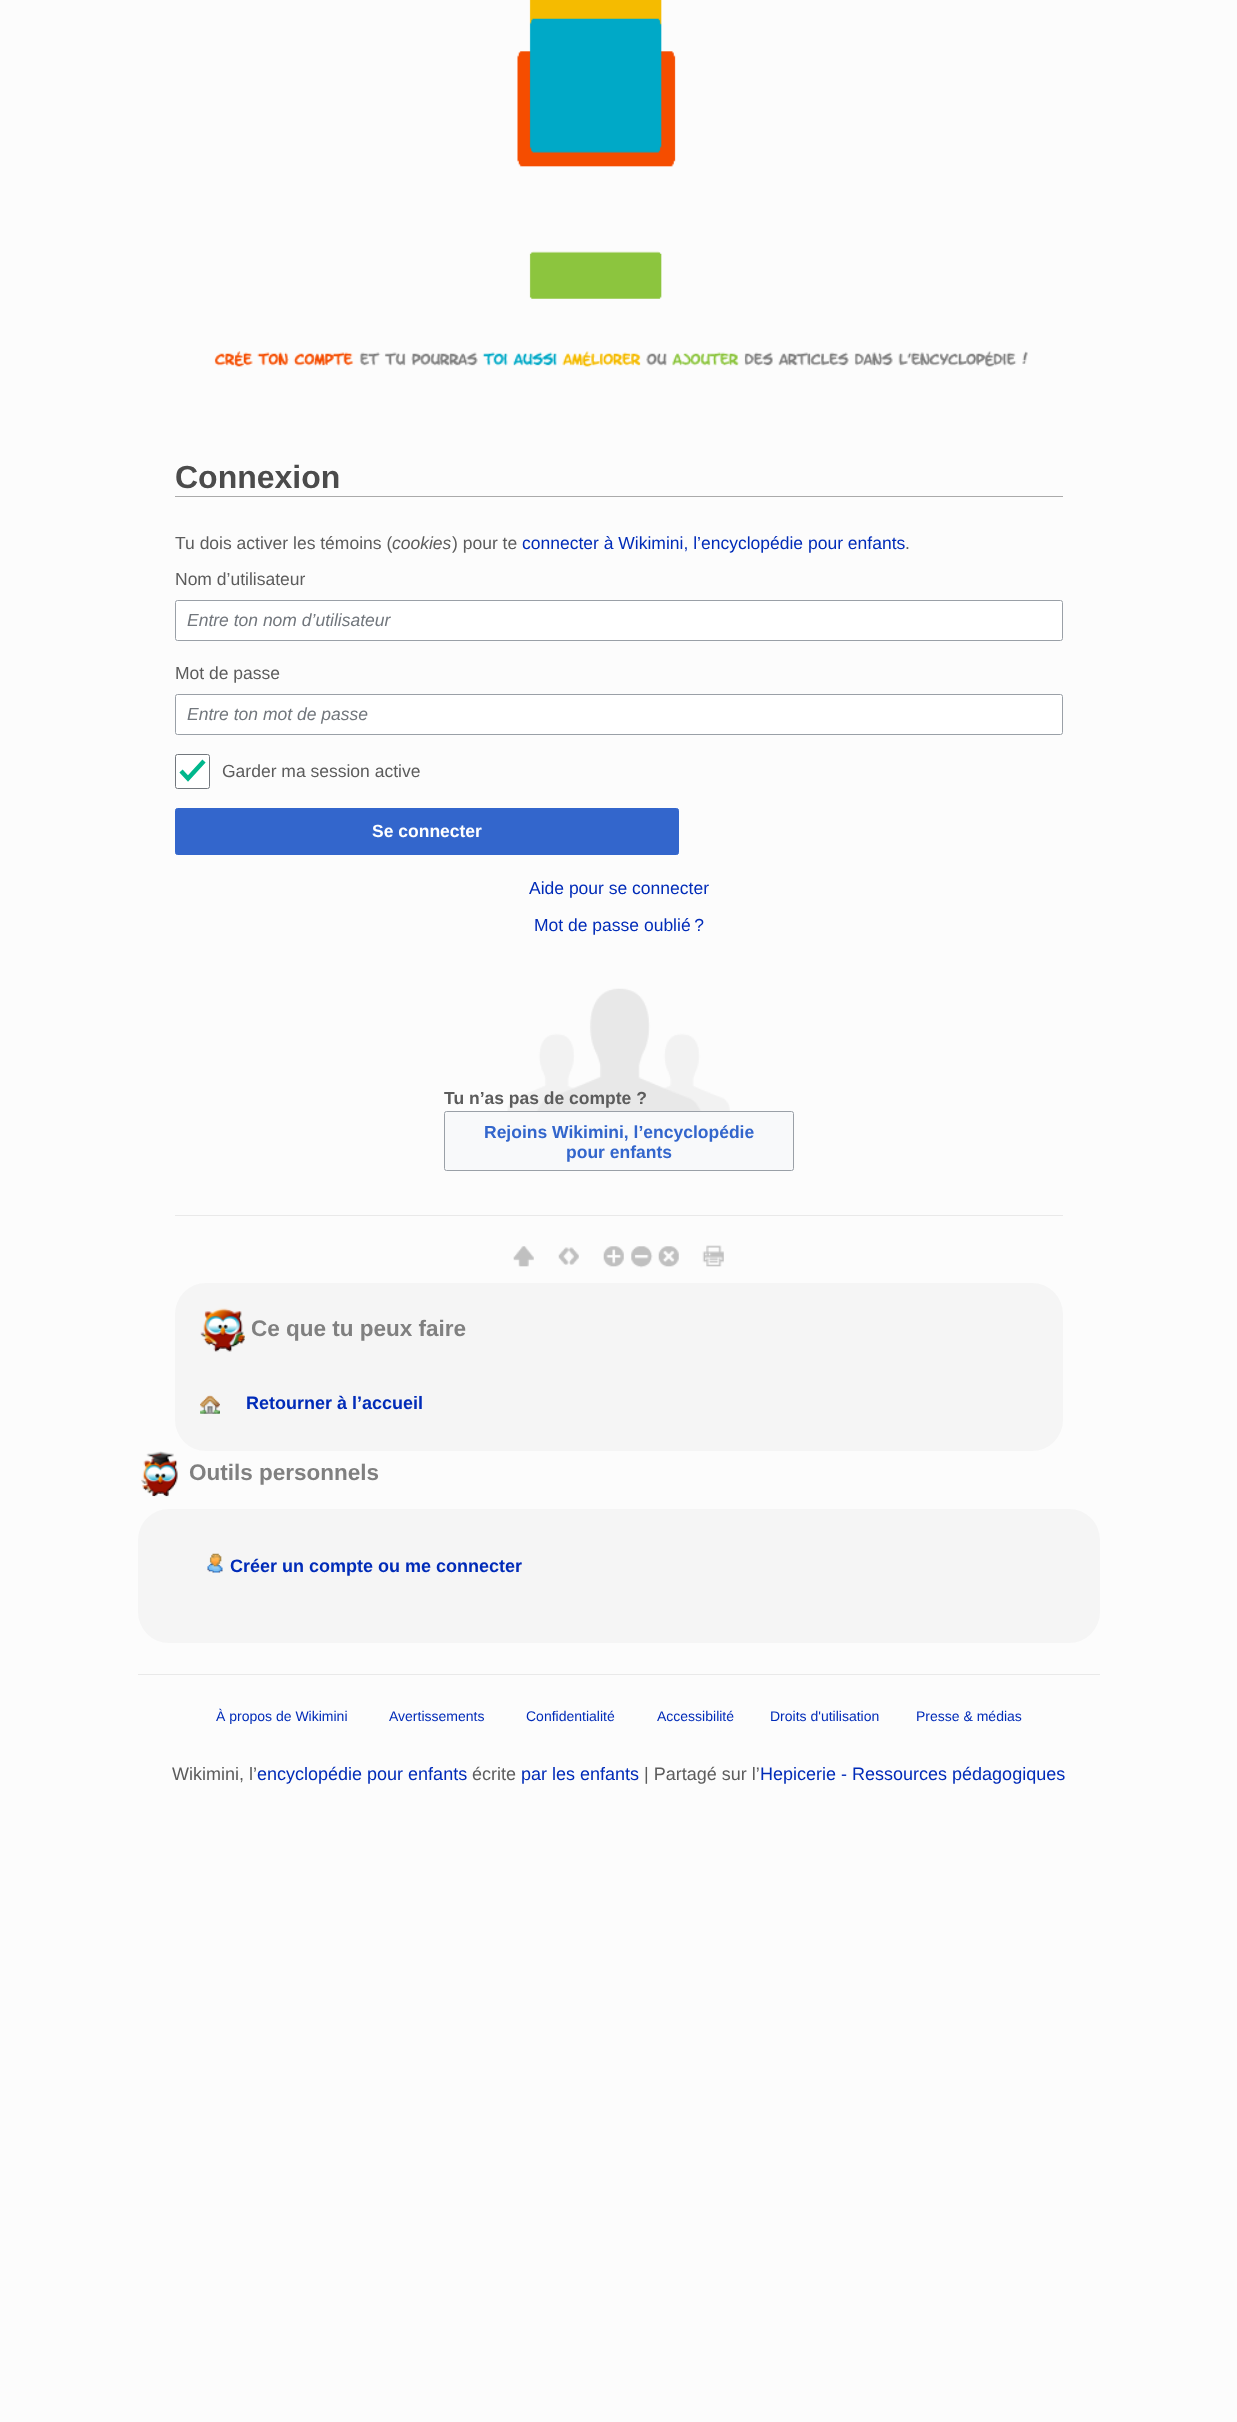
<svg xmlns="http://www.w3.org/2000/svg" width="1237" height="2422">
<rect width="100%" height="100%" fill="#fcfcfc"/>
<image x="517" y="0" width="159" height="299" href="media/1.png"/>
<image x="214" y="351" width="814" height="16" href="media/2.png"/>
<rect x="175" y="496" width="888" height="1" fill="#aaa"/>
<text x="175" y="488" style="font-family:Liberation Sans;font-size:32px;font-weight:bold;fill:#4b4b4b">Connexion</text>
<rect x="175" y="1215" width="888" height="1" fill="#e9e9e9"/>
<text x="175" y="549" style="font-family:Liberation Sans;font-size:17.5px;fill:#5c5c5c">Tu dois activer les témoins (</text>
<text x="392" y="549" style="font-family:Liberation Sans;font-size:17.5px;font-style:italic;fill:#5c5c5c">cookies</text>
<text x="452" y="549" style="font-family:Liberation Sans;font-size:17.5px;fill:#5c5c5c">) pour te</text>
<text x="522" y="549" style="font-family:Liberation Sans;font-size:17.5px;fill:#002bb8">connecter à Wikimini, l’encyclopédie pour enfants</text>
<text x="905" y="549" style="font-family:Liberation Sans;font-size:17.5px;fill:#5c5c5c">.</text>
<text x="175" y="585" style="font-family:Liberation Sans;font-size:17.5px;fill:#5c5c5c">Nom d’utilisateur</text>
<rect x="175.5" y="600.5" width="887" height="40" rx="2" fill="#fff" stroke="#9aa0a7"/>
<text x="187" y="626" style="font-family:Liberation Sans;font-size:17.5px;font-style:italic;fill:#72777d">Entre ton nom d’utilisateur</text>
<text x="175" y="679" style="font-family:Liberation Sans;font-size:17.5px;fill:#5c5c5c">Mot de passe</text>
<rect x="175.5" y="694.5" width="887" height="40" rx="2" fill="#fff" stroke="#9aa0a7"/>
<text x="187" y="720" style="font-family:Liberation Sans;font-size:17.5px;font-style:italic;fill:#72777d">Entre ton mot de passe</text>
<rect x="175" y="754" width="35" height="35" rx="2.5" fill="#fff"/>
<path d="M181 771l7 7.5l16-17.5" fill="none" stroke="#00b78c" stroke-width="4.4"/>
<rect x="175.5" y="754.5" width="34" height="34" rx="2" fill="none" stroke="#72777d"/>
<text x="222" y="777" style="font-family:Liberation Sans;font-size:17.5px;fill:#5c5c5c">Garder ma session active</text>
<rect x="175.5" y="808.5" width="503" height="46" rx="2" fill="#36c" stroke="#36c"/>
<text x="372" y="837" style="font-family:Liberation Sans;font-size:17.5px;font-weight:bold;fill:#fff">Se connecter</text>
<text x="529" y="894" style="font-family:Liberation Sans;font-size:17.5px;fill:#002bb8">Aide pour se connecter</text>
<text x="534" y="931" style="font-family:Liberation Sans;font-size:17.5px;fill:#002bb8">Mot de passe oublié ?</text>
<image x="507" y="988" width="223" height="123" href="media/3.png"/>
<text x="444" y="1104" style="font-family:Liberation Sans;font-size:17.5px;font-weight:bold;fill:#5c5c5c">Tu n’as pas de compte ?</text>
<rect x="444.5" y="1111.5" width="349" height="59" rx="2" fill="#f8f9fa" stroke="#9aa0a7"/>
<text x="484" y="1138" style="font-family:Liberation Sans;font-size:17.5px;font-weight:bold;fill:#36c">Rejoins Wikimini, l’encyclopédie</text>
<text x="566" y="1158" style="font-family:Liberation Sans;font-size:17.5px;font-weight:bold;fill:#36c">pour enfants</text>
<image x="513" y="1246" width="21" height="21" href="media/4.png"/>
<image x="558" y="1247" width="21" height="18" href="media/5.png"/>
<image x="603" y="1246" width="21" height="21" href="media/6.png"/>
<image x="631" y="1246" width="22" height="22" href="media/7.png"/>
<image x="658" y="1246" width="21" height="21" href="media/8.png"/>
<image x="702" y="1245" width="22" height="22" href="media/9.png"/>
<rect x="175" y="1283" width="888" height="168" rx="31" fill="#f5f5f5"/>
<image x="200" y="1308" width="45" height="44" href="media/10.png"/>
<text x="251" y="1336" style="font-family:Liberation Sans;font-size:22.5px;font-weight:bold;fill:#808080">Ce que tu peux faire</text>
<image x="200" y="1395" width="20" height="19" href="media/11.png"/>
<text x="246" y="1409" style="font-family:Liberation Sans;font-size:18px;font-weight:bold;fill:#002bb8">Retourner à l’accueil</text>
<image x="141" y="1451" width="37" height="46" href="media/12.png"/>
<text x="189" y="1480" style="font-family:Liberation Sans;font-size:22.5px;font-weight:bold;fill:#808080">Outils personnels</text>
<rect x="138" y="1509" width="962" height="134" rx="31" fill="#f5f5f5"/>
<image x="207" y="1553" width="16" height="20" href="media/13.png"/>
<text x="230" y="1572" style="font-family:Liberation Sans;font-size:18px;font-weight:bold;fill:#002bb8">Créer un compte ou me connecter</text>
<rect x="138" y="1674" width="962" height="1" fill="#e9e9e9"/>
<text x="216" y="1721" style="font-family:Liberation Sans;font-size:14px;fill:#002bb8">À propos de Wikimini</text>
<text x="389" y="1721" style="font-family:Liberation Sans;font-size:14px;fill:#002bb8">Avertissements</text>
<text x="526" y="1721" style="font-family:Liberation Sans;font-size:14px;fill:#002bb8">Confidentialité</text>
<text x="657" y="1721" style="font-family:Liberation Sans;font-size:14px;fill:#002bb8">Accessibilité</text>
<text x="770" y="1721" style="font-family:Liberation Sans;font-size:14px;fill:#002bb8">Droits d'utilisation</text>
<text x="916" y="1721" style="font-family:Liberation Sans;font-size:14px;fill:#002bb8">Presse &amp; médias</text>
<text x="172" y="1780" style="font-family:Liberation Sans;font-size:18px;fill:#5c5c5c">Wikimini, l’</text>
<text x="257" y="1780" style="font-family:Liberation Sans;font-size:18px;fill:#002bb8">encyclopédie pour enfants</text>
<text x="472" y="1780" style="font-family:Liberation Sans;font-size:18px;fill:#5c5c5c">écrite</text>
<text x="521" y="1780" style="font-family:Liberation Sans;font-size:18px;fill:#002bb8">par les enfants</text>
<text x="644" y="1780" style="font-family:Liberation Sans;font-size:18px;fill:#5c5c5c">| Partagé sur l’</text>
<text x="760" y="1780" style="font-family:Liberation Sans;font-size:18px;fill:#002bb8">Hepicerie - Ressources pédagogiques</text>
</svg>
